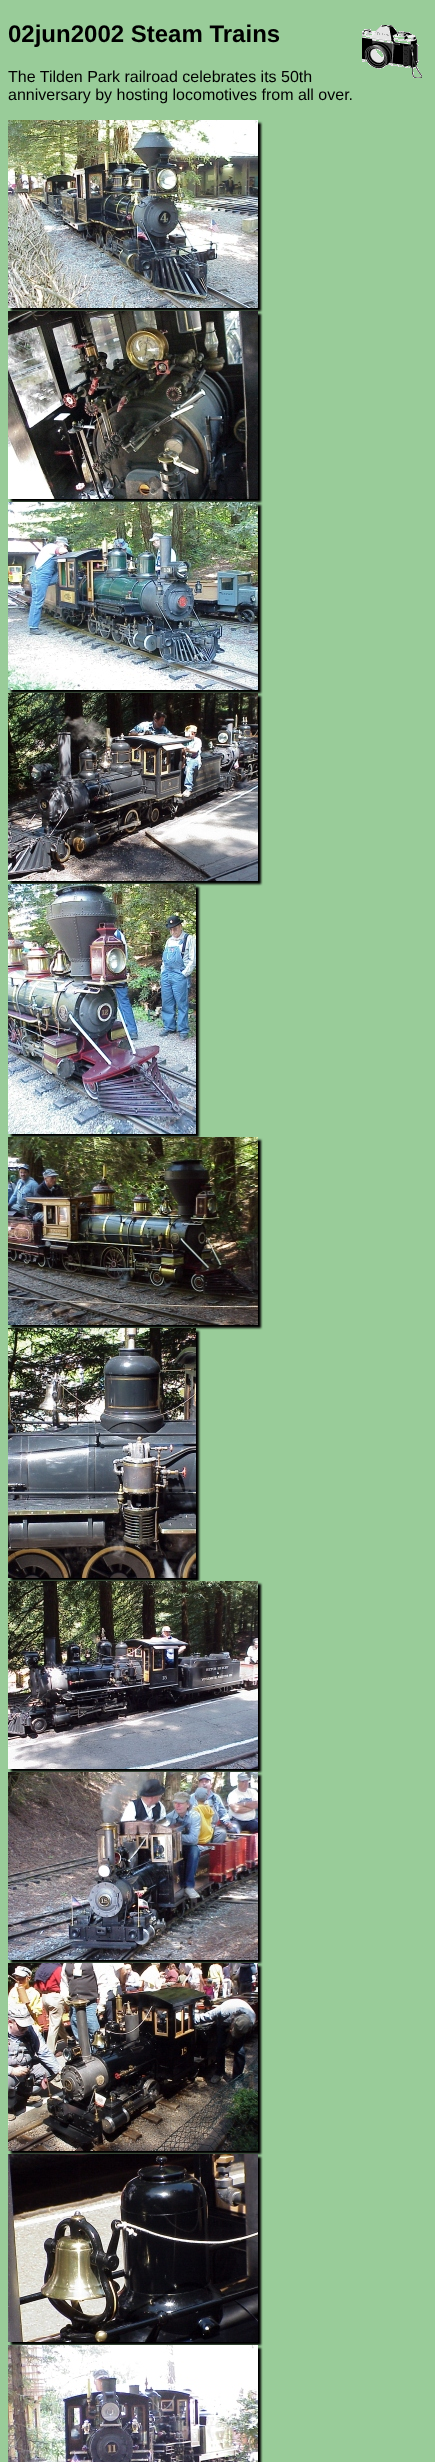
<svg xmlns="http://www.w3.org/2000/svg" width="435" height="2462">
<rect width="100%" height="100%" fill="#9c9"/>
<text x="8" y="42" style="font-family:Liberation Sans;font-size:24px;font-weight:bold;fill:#000">02jun2002 Steam Trains</text>
<image x="362" y="25" width="60" height="53" href="media/1.png"/>
<text x="8" y="82" style="font-family:Liberation Sans;font-size:16px;fill:#000">The Tilden Park railroad celebrates its 50th</text>
<text x="8" y="100" style="font-family:Liberation Sans;font-size:16px;fill:#000">anniversary by hosting locomotives from all over.</text>
<rect x="11" y="123" width="250" height="188" fill="#000" filter="blur(1px)"/>
<image x="8" y="120" width="250" height="188" href="media/2.png"/>
<rect x="11" y="314" width="250" height="188" fill="#000" filter="blur(1px)"/>
<image x="8" y="311" width="250" height="188" href="media/3.png"/>
<rect x="11" y="505" width="250" height="188" fill="#000" filter="blur(1px)"/>
<image x="8" y="502" width="250" height="188" href="media/4.png"/>
<rect x="11" y="696" width="250" height="188" fill="#000" filter="blur(1px)"/>
<image x="8" y="693" width="250" height="188" href="media/5.png"/>
<rect x="11" y="887" width="188" height="250" fill="#000" filter="blur(1px)"/>
<image x="8" y="884" width="188" height="250" href="media/6.png"/>
<rect x="11" y="1140" width="250" height="188" fill="#000" filter="blur(1px)"/>
<image x="8" y="1137" width="250" height="188" href="media/7.png"/>
<rect x="11" y="1331" width="188" height="250" fill="#000" filter="blur(1px)"/>
<image x="8" y="1328" width="188" height="250" href="media/8.png"/>
<rect x="11" y="1584" width="250" height="188" fill="#000" filter="blur(1px)"/>
<image x="8" y="1581" width="250" height="188" href="media/9.png"/>
<rect x="11" y="1775" width="250" height="188" fill="#000" filter="blur(1px)"/>
<image x="8" y="1772" width="250" height="188" href="media/10.png"/>
<rect x="11" y="1966" width="250" height="188" fill="#000" filter="blur(1px)"/>
<image x="8" y="1963" width="250" height="188" href="media/11.png"/>
<rect x="11" y="2157" width="250" height="188" fill="#000" filter="blur(1px)"/>
<image x="8" y="2154" width="250" height="188" href="media/12.png"/>
<rect x="11" y="2348" width="250" height="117" fill="#000" filter="blur(1px)"/>
<image x="8" y="2345" width="250" height="117" href="media/13.png"/>
</svg>
